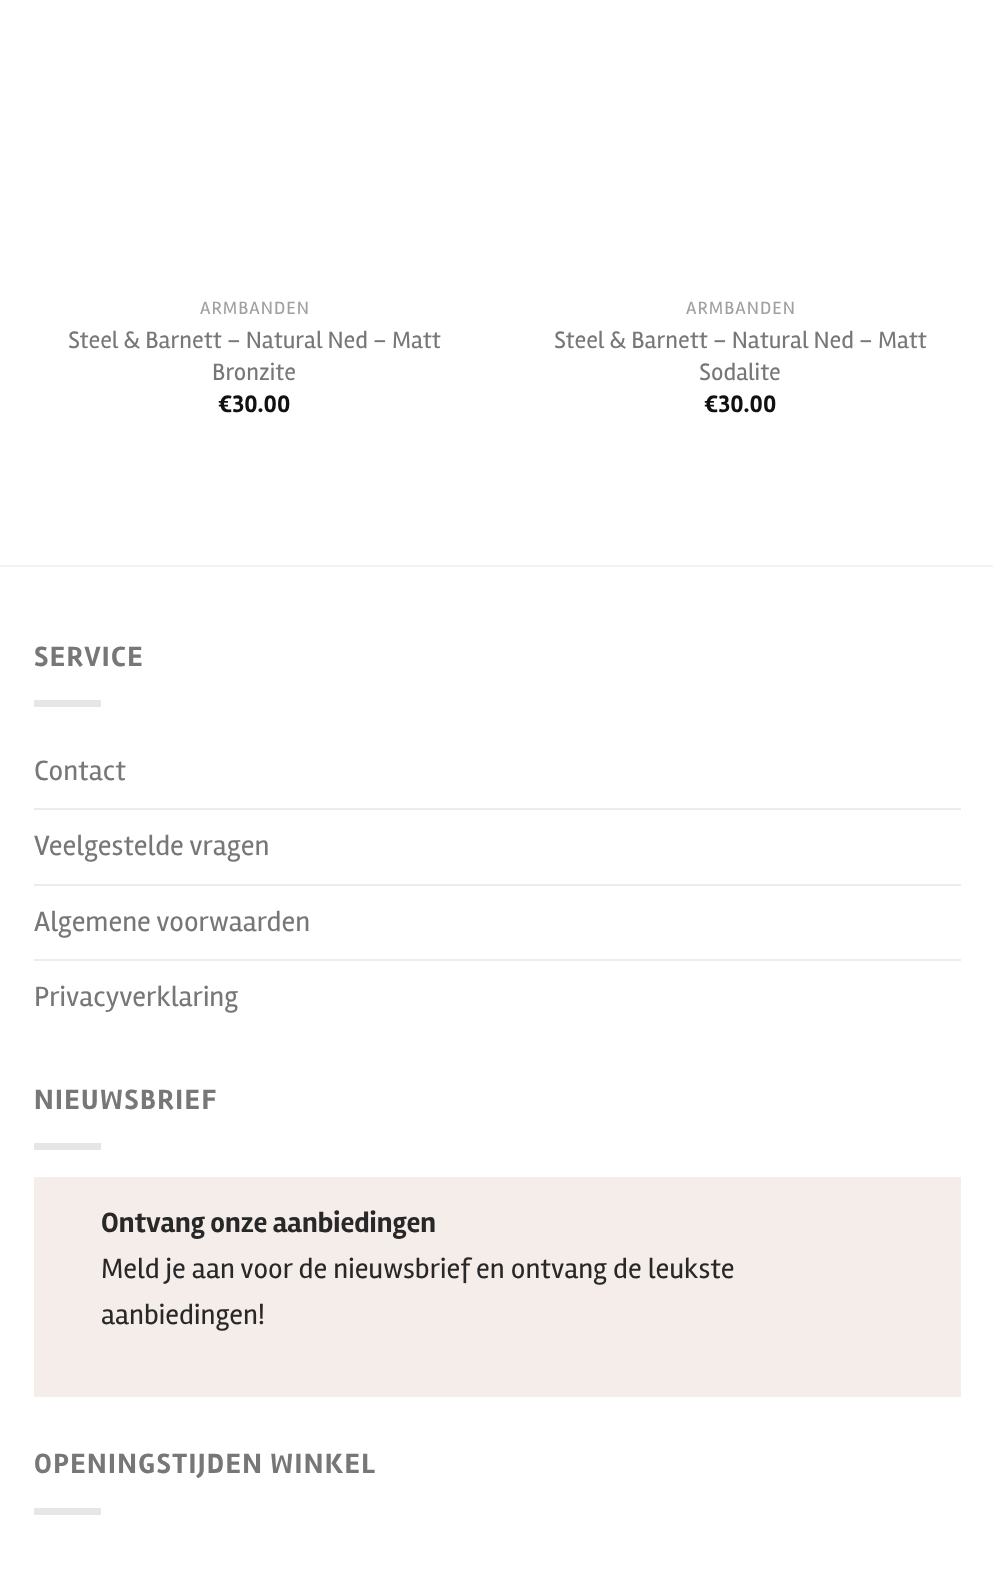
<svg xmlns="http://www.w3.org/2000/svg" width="993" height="1572">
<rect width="100%" height="100%" fill="#fff"/>
<text x="200" y="314" style="font-family:Rambla;font-size:18.5px;letter-spacing:1px;fill:#a0a0a0">ARMBANDEN</text>
<text x="68" y="348" style="font-family:Rambla;font-size:24.5px;fill:#777">Steel &amp; Barnett – Natural Ned – Matt</text>
<text x="212" y="380" style="font-family:Rambla;font-size:24.5px;fill:#777">Bronzite</text>
<text x="218" y="412" style="font-family:Rambla;font-size:24.5px;font-weight:bold;fill:#111">€30.00</text>
<text x="686" y="314" style="font-family:Rambla;font-size:18.5px;letter-spacing:1px;fill:#a0a0a0">ARMBANDEN</text>
<text x="554" y="348" style="font-family:Rambla;font-size:24.5px;fill:#777">Steel &amp; Barnett – Natural Ned – Matt</text>
<text x="699" y="380" style="font-family:Rambla;font-size:24.5px;fill:#777">Sodalite</text>
<text x="704" y="412" style="font-family:Rambla;font-size:24.5px;font-weight:bold;fill:#111">€30.00</text>
<rect y="565" width="993" height="2" fill="#f2f2f2"/>
<text x="34" y="666" style="font-family:Rambla;font-size:28.8px;font-weight:bold;letter-spacing:1.4px;fill:#777">SERVICE</text>
<rect x="34" y="700" width="67" height="7" fill="#e6e6e6"/>
<text x="34" y="780" style="font-family:Rambla;font-size:28.8px;fill:#777">Contact</text>
<rect x="34" y="808" width="927" height="2" fill="#ececec"/>
<text x="34" y="855" style="font-family:Rambla;font-size:28.8px;fill:#777">Veelgestelde vragen</text>
<rect x="34" y="884" width="927" height="2" fill="#ececec"/>
<text x="34" y="931" style="font-family:Rambla;font-size:28.8px;fill:#777">Algemene voorwaarden</text>
<rect x="34" y="959" width="927" height="2" fill="#ececec"/>
<text x="34" y="1006" style="font-family:Rambla;font-size:28.8px;fill:#777">Privacyverklaring</text>
<text x="34" y="1109" style="font-family:Rambla;font-size:28.8px;font-weight:bold;letter-spacing:1.4px;fill:#777">NIEUWSBRIEF</text>
<rect x="34" y="1143" width="67" height="7" fill="#e6e6e6"/>
<rect x="34" y="1177" width="927" height="220" fill="#f5edea"/>
<text x="101" y="1232" style="font-family:Rambla;font-size:28.8px;font-weight:bold;fill:#282828">Ontvang onze aanbiedingen</text>
<text x="101" y="1278" style="font-family:Rambla;font-size:28.8px;fill:#282828">Meld je aan voor de nieuwsbrief en ontvang de leukste</text>
<text x="101" y="1324" style="font-family:Rambla;font-size:28.8px;fill:#282828">aanbiedingen!</text>
<text x="34" y="1473" style="font-family:Rambla;font-size:28.8px;font-weight:bold;letter-spacing:1.4px;fill:#777">OPENINGSTIJDEN WINKEL</text>
<rect x="34" y="1508" width="67" height="7" fill="#e6e6e6"/>
</svg>
